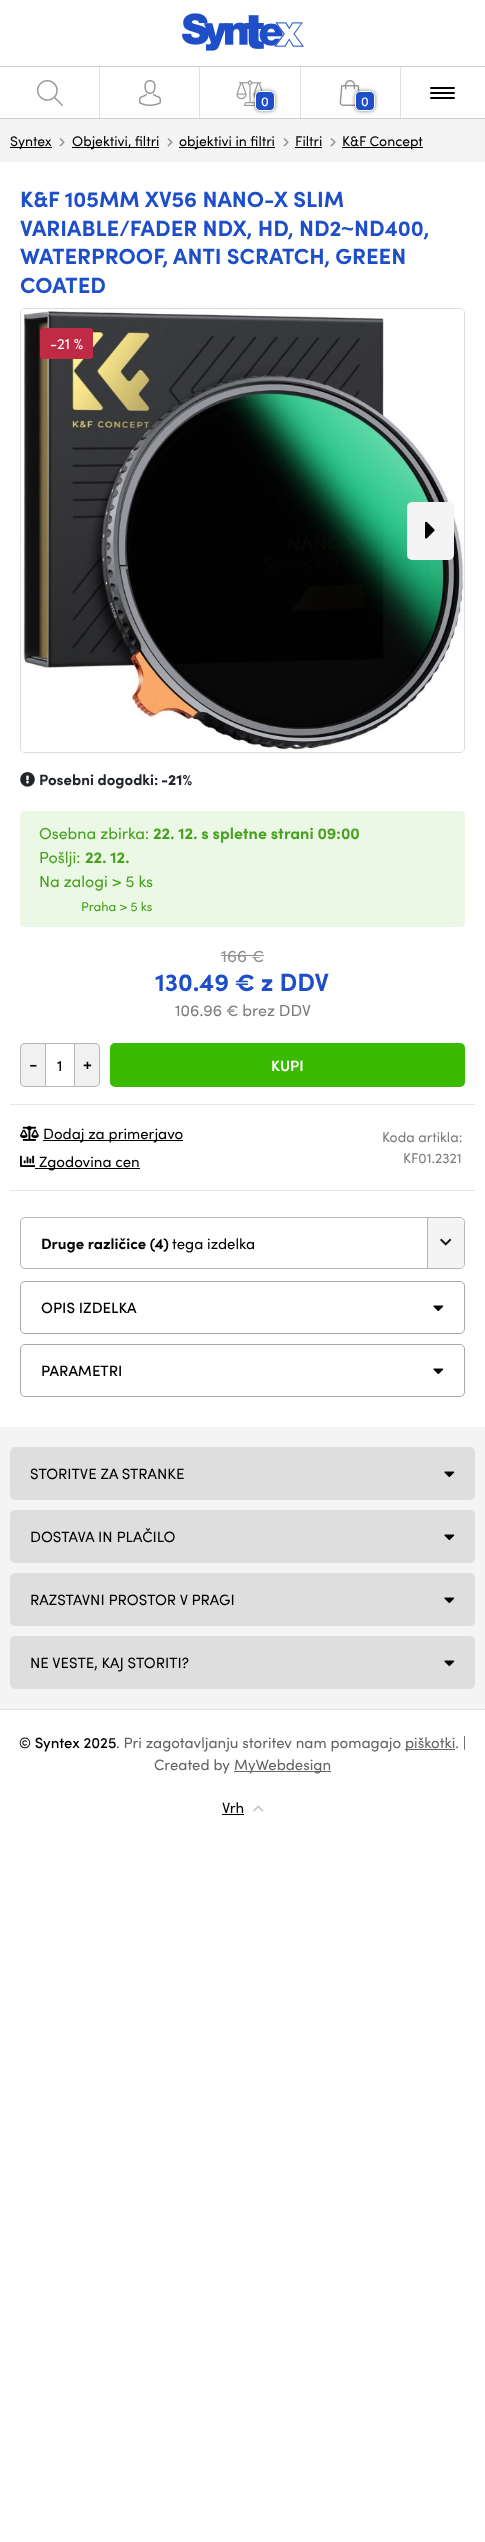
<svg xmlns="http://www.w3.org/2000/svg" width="485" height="2542">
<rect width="100%" height="100%" fill="#fff"/>
<rect y="118" width="485" height="1" fill="#cdcdcd"/>
<rect y="66" width="485" height="1" fill="#cdcdcd"/>
<image x="182" y="13" width="122" height="38" href="media/1.png"/>
<rect x="99" y="67" width="1" height="51" fill="#e1e1e1"/>
<image x="37" y="80" width="26" height="26" href="media/2.png"/>
<rect x="199" y="67" width="1" height="51" fill="#e1e1e1"/>
<image x="138" y="80" width="24" height="26" href="media/3.png"/>
<rect x="430" y="97" width="25" height="2" rx="1" fill="#000"/>
<rect x="430" y="87" width="25" height="2" rx="1" fill="#000"/>
<rect x="430" y="92" width="25" height="2" rx="1" fill="#000"/>
<rect x="300" y="67" width="1" height="51" fill="#e1e1e1"/>
<image x="236" y="80" width="27" height="26" href="media/4.png"/>
<rect x="255" y="91" width="20" height="20" rx="5" fill="#00000080" filter="blur(2px)"/>
<rect x="255.5" y="91.5" width="19" height="19" rx="4.5" fill="#1f4fc8" stroke="#fff"/>
<text x="261" y="106" style="font-family:Sofia;font-size:13px;font-weight:500;fill:#fff">0</text>
<rect x="400" y="67" width="1" height="51" fill="#e1e1e1"/>
<image x="339" y="80" width="21" height="26" href="media/5.png"/>
<rect x="355" y="91" width="20" height="20" rx="5" fill="#00000080" filter="blur(2px)"/>
<rect x="355.5" y="91.5" width="19" height="19" rx="4.5" fill="#1f4fc8" stroke="#fff"/>
<text x="361" y="106" style="font-family:Sofia;font-size:13px;font-weight:500;fill:#fff">0</text>
<rect y="119" width="485" height="43" fill="#f4f4f4"/>
<rect x="10" y="147" width="42" height="1" fill="#000"/>
<text x="10" y="146" style="font-family:Sofia;font-size:14px;fill:#000">Syntex</text>
<image x="59" y="138" width="6" height="9" href="media/6.png"/>
<rect x="72" y="147" width="87" height="1" fill="#000"/>
<text x="72" y="146" style="font-family:Sofia;font-size:14px;fill:#000">Objektivi, filtri</text>
<image x="167" y="138" width="6" height="9" href="media/6.png"/>
<rect x="179" y="147" width="96" height="1" fill="#000"/>
<text x="179" y="146" style="font-family:Sofia;font-size:14px;fill:#000">objektivi in filtri</text>
<image x="283" y="138" width="6" height="9" href="media/6.png"/>
<text x="295" y="146" style="font-family:Sofia;font-size:14px;fill:#000">Filtri</text>
<rect x="295" y="147" width="27" height="1" fill="#000"/>
<image x="330" y="138" width="6" height="9" href="media/6.png"/>
<rect x="342" y="147" width="81" height="1" fill="#000"/>
<text x="342" y="146" style="font-family:Sofia;font-size:14px;fill:#000">K&amp;F Concept</text>
<text x="20" y="207" style="font-family:Sofia;font-size:22px;font-weight:bold;fill:#1f4fc8">K&amp;F 105MM XV56 NANO-X SLIM</text>
<text x="20" y="236" style="font-family:Sofia;font-size:22px;font-weight:bold;fill:#1f4fc8">VARIABLE/FADER NDX, HD, ND2</text>
<text x="341" y="236" style="font-family:Liberation Sans;font-size:22px;font-weight:bold;fill:#1f4fc8">~</text>
<text x="354" y="236" style="font-family:Sofia;font-size:22px;font-weight:bold;fill:#1f4fc8">ND400,</text>
<text x="20" y="264" style="font-family:Sofia;font-size:22px;font-weight:bold;fill:#1f4fc8">WATERPROOF, ANTI SCRATCH, GREEN</text>
<text x="20" y="293" style="font-family:Sofia;font-size:22px;font-weight:bold;fill:#1f4fc8">COATED</text>
<rect x="20.5" y="308.5" width="444" height="444" rx="4.5" fill="none" stroke="#dcdcdc"/>
<image x="21" y="309" width="443" height="443" href="media/7.png"/>
<rect x="407" y="502" width="47" height="58" rx="5" fill="#f4f4f4"/>
<image x="425" y="521" width="10" height="18" href="media/8.png"/>
<rect x="40" y="328" width="53" height="31" rx="3" fill="#bf2b44"/>
<text x="50" y="349" style="font-family:Sofia;font-size:15px;fill:#fff">-21 %</text>
<image x="20" y="772" width="15" height="15" href="media/9.png"/>
<text x="39" y="785" style="font-family:Sofia;font-size:15px;font-weight:bold;fill:#212529">Posebni dogodki:</text>
<text x="161" y="785" style="font-family:Sofia;font-size:15px;font-weight:900;fill:#212529">-21%</text>
<rect x="20" y="811" width="445" height="116" rx="4" fill="#ebf8e5"/>
<text x="39" y="839" style="font-family:Sofia;font-size:16px;fill:#48a01f">Osebna zbirka:</text>
<text x="153" y="839" style="font-family:Sofia;font-size:16px;font-weight:bold;fill:#48a01f">22. 12. s spletne strani 09:00</text>
<text x="39" y="863" style="font-family:Sofia;font-size:16px;fill:#48a01f">Pošlji:</text>
<text x="85" y="863" style="font-family:Sofia;font-size:16px;font-weight:bold;fill:#48a01f">22. 12.</text>
<text x="39" y="887" style="font-family:Sofia;font-size:16px;fill:#48a01f">Na zalogi &gt; 5 ks</text>
<text x="81" y="911" style="font-family:Sofia;font-size:12.75px;fill:#48a01f">Praha &gt; 5 ks</text>
<text x="221" y="962" style="font-family:Sofia;font-size:17px;fill:#909090">166 €</text>
<rect x="221" y="955" width="43" height="1" fill="#909090"/>
<text x="155" y="991" style="font-family:Sofia;font-size:25px;font-weight:bold;fill:#1f4fc8">130.49 € z DDV</text>
<text x="175" y="1016" style="font-family:Sofia;font-size:16px;fill:#7d7d7d">106.96 € brez DDV</text>
<rect x="20.5" y="1043.5" width="79" height="43" rx="4.5" fill="none" stroke="#b7b7b7"/>
<rect x="21" y="1044" width="78" height="42" fill="#fff"/>
<path d="M25 1043.5h20.5v43h-20.5c-2.5 0-4.5-2-4.5-4.5v-34c0-2.5 2-4.5 4.5-4.5z" fill="#f1f1f1" stroke="#b7b7b7"/>
<text x="29" y="1070" style="font-family:Sofia;font-size:18px;font-weight:500;fill:#060606">-</text>
<text x="57" y="1071" style="font-family:Sofia;font-size:15px;font-weight:500;fill:#060606">1</text>
<path d="M74.5 1043.5h20.5c2.5 0 4.5 2 4.5 4.5v34c0 2.5-2 4.5-4.5 4.5h-20.5z" fill="#f1f1f1" stroke="#b7b7b7"/>
<text x="83" y="1070" style="font-family:Sofia;font-size:18px;font-weight:500;fill:#060606">+</text>
<rect x="110" y="1043" width="355" height="44" rx="5" fill="#3aba00"/>
<text x="271" y="1071" style="font-family:Sofia;font-size:15px;font-weight:600;fill:#fff">KUPI</text>
<rect x="10" y="1104" width="465" height="1" fill="#e6e6e6"/>
<rect x="10" y="1190" width="465" height="1" fill="#e6e6e6"/>
<image x="20" y="1125" width="19" height="16" href="media/10.png"/>
<rect x="43" y="1140" width="140" height="1" fill="#000"/>
<text x="43" y="1139" style="font-family:Sofia;font-size:15px;fill:#000">Dodaj za primerjavo</text>
<text x="382" y="1142" style="font-family:Sofia;font-size:14px;fill:#7d7d7d">Koda artikla:</text>
<text x="403" y="1163" style="font-family:Sofia;font-size:14px;fill:#7d7d7d">KF01.2321</text>
<image x="20" y="1155" width="15" height="12" href="media/11.png"/>
<rect x="35" y="1168" width="105" height="1" fill="#000"/>
<text x="39" y="1167" style="font-family:Sofia;font-size:15px;fill:#000">Zgodovina cen</text>
<rect x="20.5" y="1217.5" width="444" height="51" rx="4.5" fill="none" stroke="#b7b7b7"/>
<text x="41" y="1249" style="font-family:Sofia;font-size:15px;font-weight:bold;fill:#000">Druge različice (4)</text>
<text x="172" y="1249" style="font-family:Sofia;font-size:15px;fill:#000">tega izdelka</text>
<path d="M427 1218h32c3 0 5 2 5 5v40c0 3-2 5-5 5h-32z" fill="#f4f4f4"/>
<rect x="427" y="1218" width="1" height="50" fill="#b7b7b7"/>
<image x="440" y="1238" width="12" height="8" href="media/12.png"/>
<rect x="20.5" y="1281.5" width="444" height="52" rx="4.5" fill="none" stroke="#a8a8a8"/>
<text x="41" y="1313" style="font-family:Sofia;font-size:15px;font-weight:500;fill:#000">OPIS IZDELKA</text>
<image x="433" y="1305" width="11" height="7" href="media/13.png"/>
<rect x="20.5" y="1344.5" width="444" height="52" rx="4.5" fill="none" stroke="#a8a8a8"/>
<text x="41" y="1376" style="font-family:Sofia;font-size:15px;font-weight:500;fill:#000">PARAMETRI</text>
<image x="433" y="1368" width="11" height="7" href="media/13.png"/>
<rect y="1427" width="485" height="282" fill="#f4f4f4"/>
<rect x="10" y="1447" width="465" height="53" rx="5" fill="#dedede"/>
<text x="30" y="1479" style="font-family:Sofia;font-size:15px;fill:#000">STORITVE ZA STRANKE</text>
<image x="444" y="1471" width="11" height="7" href="media/14.png"/>
<rect x="10" y="1510" width="465" height="53" rx="5" fill="#dedede"/>
<text x="30" y="1542" style="font-family:Sofia;font-size:15px;fill:#000">DOSTAVA IN PLAČILO</text>
<image x="444" y="1534" width="11" height="7" href="media/14.png"/>
<rect x="10" y="1573" width="465" height="53" rx="5" fill="#dedede"/>
<text x="30" y="1605" style="font-family:Sofia;font-size:15px;fill:#000">RAZSTAVNI PROSTOR V PRAGI</text>
<image x="444" y="1597" width="11" height="7" href="media/14.png"/>
<rect x="10" y="1636" width="465" height="53" rx="5" fill="#dedede"/>
<text x="30" y="1668" style="font-family:Sofia;font-size:15px;fill:#000">NE VESTE, KAJ STORITI?</text>
<image x="444" y="1660" width="11" height="7" href="media/14.png"/>
<rect y="1709" width="485" height="1" fill="#e3e3e3"/>
<text x="19" y="1748" style="font-family:Sofia;font-size:15px;font-weight:500;fill:#000">© Syntex 2025</text>
<text x="116" y="1748" style="font-family:Sofia;font-size:15px;fill:#656565">. Pri zagotavljanju storitev nam pomagajo</text>
<rect x="405" y="1749" width="50" height="1" fill="#656565"/>
<text x="405" y="1748" style="font-family:Sofia;font-size:15px;fill:#656565">piškotki. |</text>
<text x="154" y="1770" style="font-family:Sofia;font-size:15px;fill:#656565">Created by</text>
<rect x="234" y="1771" width="97" height="1" fill="#656565"/>
<text x="234" y="1770" style="font-family:Sofia;font-size:15px;fill:#656565">MyWebdesign</text>
<text x="222" y="1813" style="font-family:Sofia;font-size:15px;fill:#000">Vrh</text>
<rect x="222" y="1814" width="22" height="1" fill="#000"/>
<image x="253" y="1805" width="11" height="7" href="media/15.png"/>
</svg>
